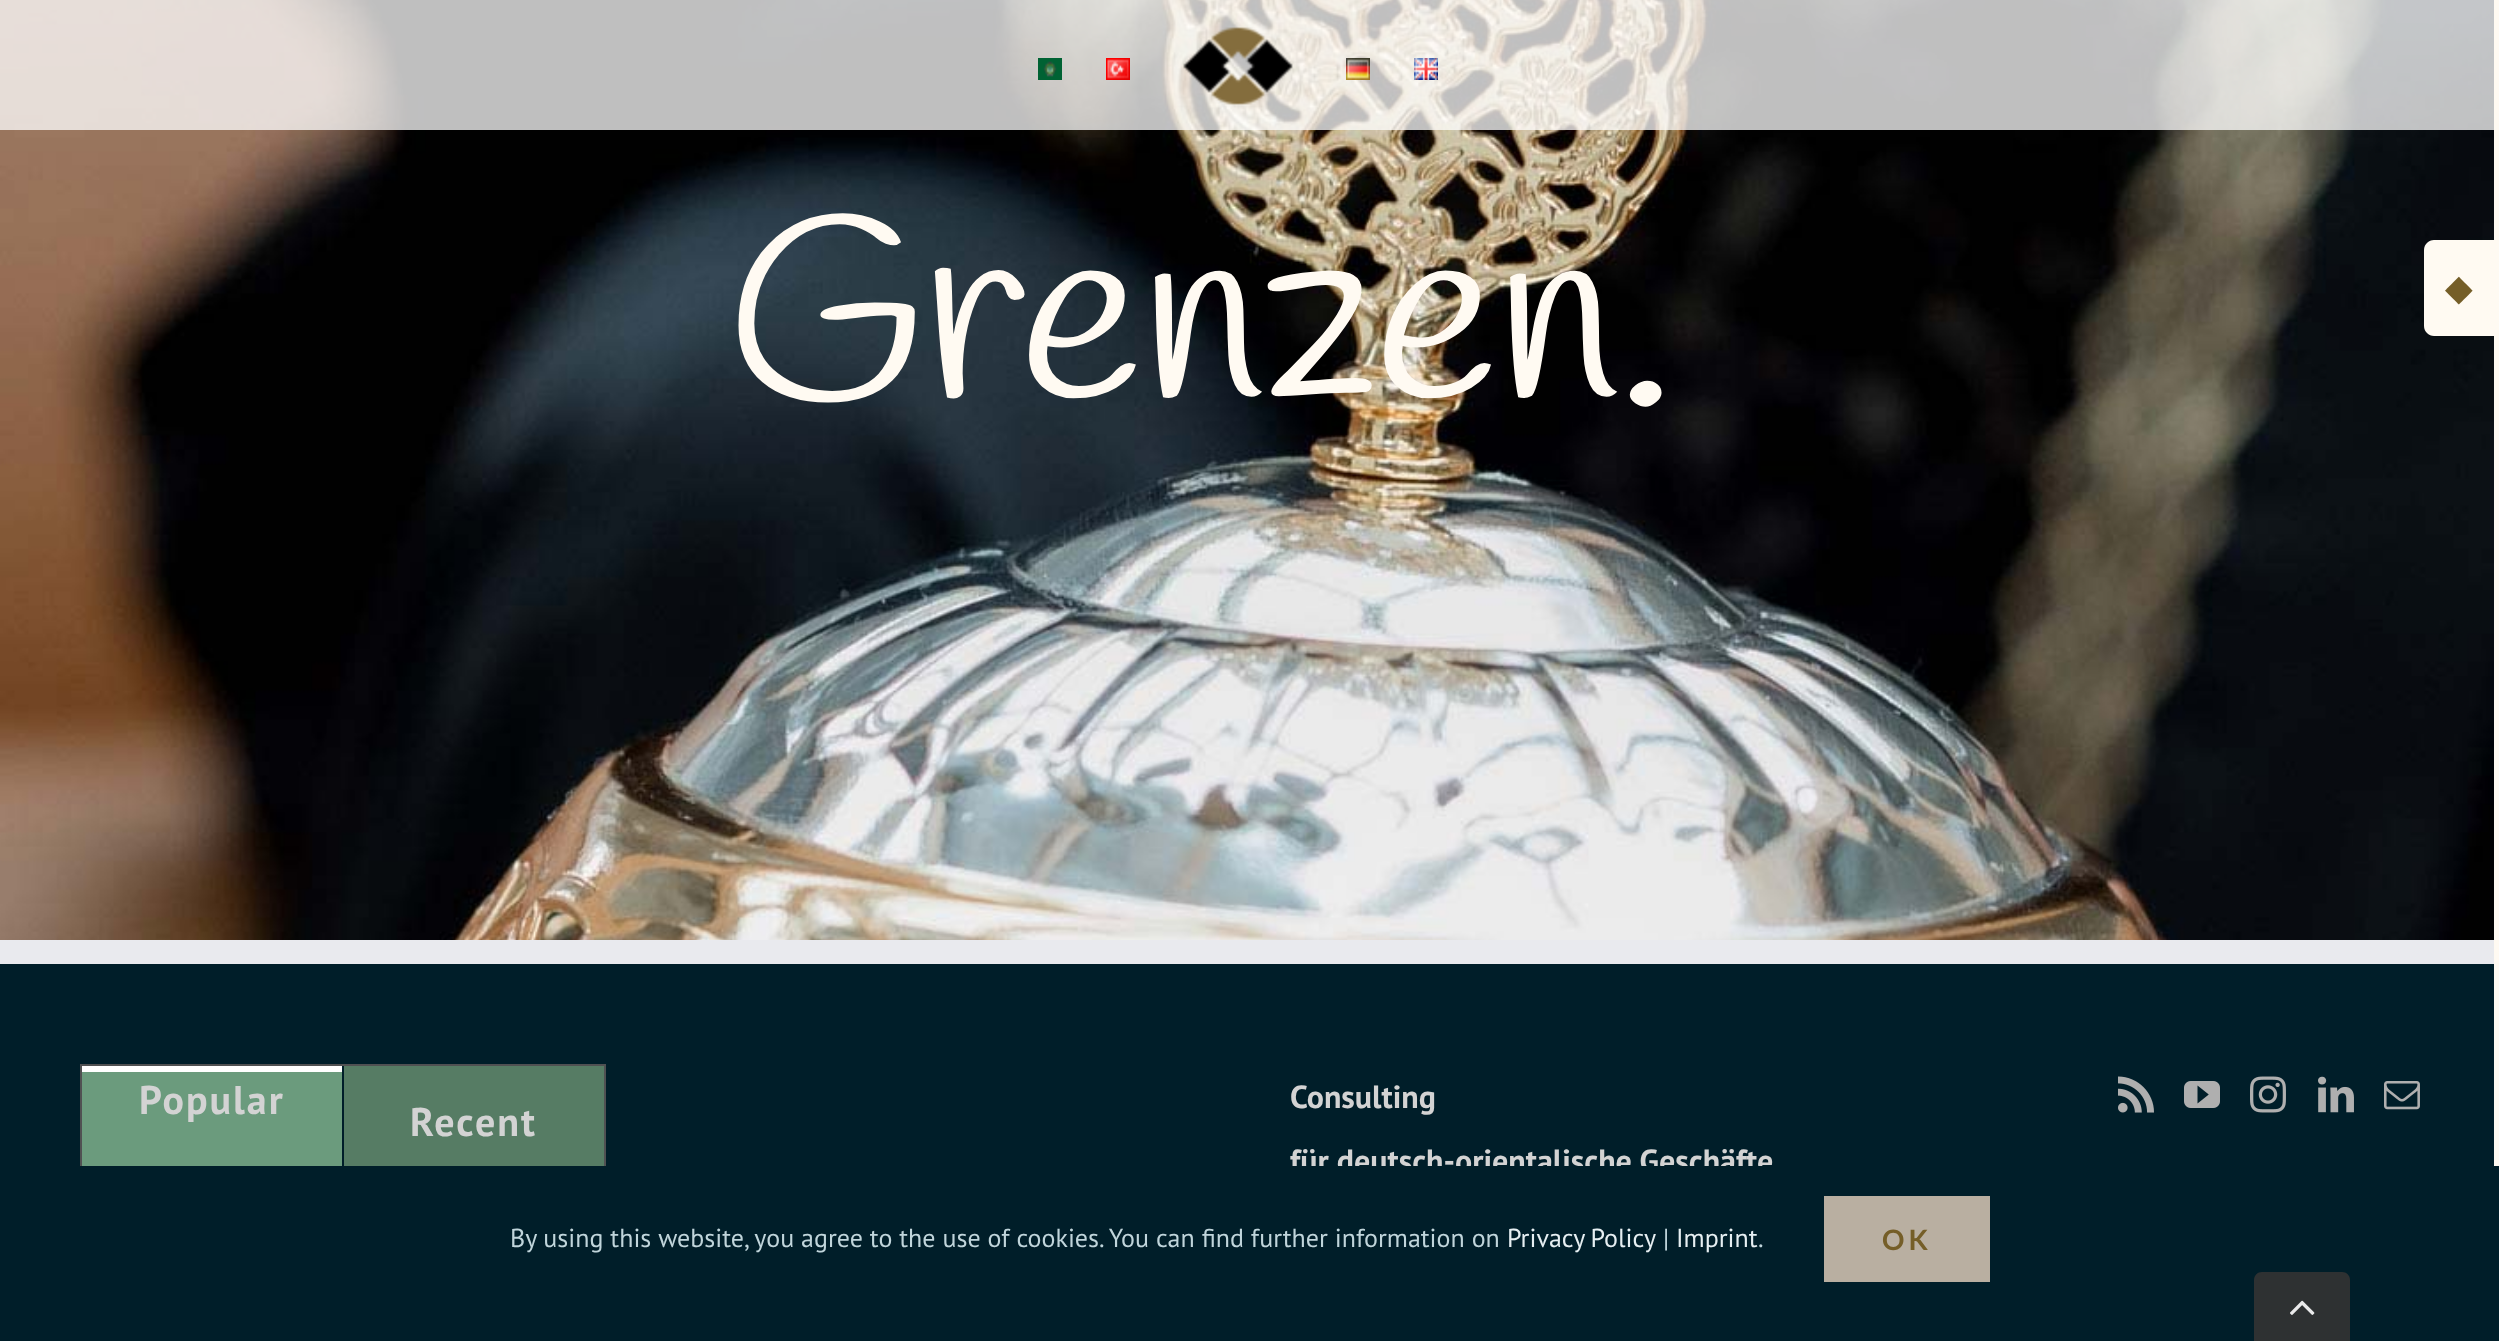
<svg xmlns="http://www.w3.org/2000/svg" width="2499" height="1341">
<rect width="100%" height="100%" fill="#001e29"/>
<image x="0" y="0" width="2494" height="940" href="media/6.png"/>
<rect width="2494" height="130" fill="#ffffffbf"/>
<image x="1038" y="58" width="24" height="22" href="media/1.png"/>
<image x="1106" y="58" width="24" height="22" href="media/2.png"/>
<image x="1183" y="27" width="110" height="78" href="media/3.png"/>
<image x="1346" y="58" width="24" height="22" href="media/4.png"/>
<image x="1414" y="58" width="24" height="22" href="media/5.png"/>
<text x="726" y="399" style="font-family:Handlee;font-size:260px;letter-spacing:-2px;fill:#fffaf2">Grenzen.</text>
<path d="M2434 240h60v96h-60c-5.5 0-10-4.5-10-10v-76c0-5.5 4.5-10 10-10z" fill="#fffaf2"/>
<text x="2445" y="300" style="font-family:DejaVu Sans;font-size:36px;fill:#755e28">◆︎</text>
<rect x="2494" width="5" height="1166" fill="#fffaf2"/>
<rect y="940" width="2494" height="24" fill="#e9eaee"/>
<rect x="82" y="1072" width="260" height="94" fill="#6b9b7d"/>
<rect x="81" y="1065" width="524" height="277" fill="none" stroke="#505152" stroke-width="2"/>
<rect x="82" y="1066" width="260" height="6" fill="#fff"/>
<text x="139" y="1114" style="font-family:PT Sans;font-size:40px;font-weight:bold;letter-spacing:2px;fill:#d3d3d3">Popular</text>
<rect x="344" y="1066" width="260" height="100" fill="#567c64"/>
<text x="410" y="1136" style="font-family:PT Sans;font-size:40px;font-weight:bold;letter-spacing:2px;fill:#d3d3d3">Recent</text>
<text x="1290" y="1108" style="font-family:PT Sans;font-size:32px;font-weight:bold;fill:#d3d3d3">Consulting</text>
<text x="1290" y="1172" style="font-family:PT Sans;font-size:32px;font-weight:bold;fill:#d3d3d3">für deutsch-orientalische Geschäfte</text>
<image x="2118" y="1076" width="36" height="37" href="media/7.png"/>
<image x="2184" y="1081" width="36" height="27" href="media/8.png"/>
<image x="2250" y="1076" width="36" height="37" href="media/9.png"/>
<image x="2318" y="1076" width="36" height="37" href="media/10.png"/>
<image x="2384" y="1081" width="36" height="29" href="media/11.png"/>
<rect x="80" y="1166" width="1692" height="175" fill="#001e29"/>
<text x="510" y="1247" style="font-family:PT Sans;font-size:26px;fill:#c0d5db">By using this website, you agree to the use of cookies. You can find further information on</text>
<text x="1507" y="1247" word-spacing="-1" style="font-family:PT Sans;font-size:26px;fill:#e6eff2">Privacy Policy</text>
<text x="1663" y="1247" style="font-family:PT Sans;font-size:26px;fill:#c0d5db">|</text>
<text x="1676" y="1247" style="font-family:PT Sans;font-size:26px;fill:#e6eff2">Imprint</text>
<text x="1758" y="1247" style="font-family:PT Sans;font-size:26px;fill:#c0d5db">.</text>
<rect x="1824" y="1196" width="166" height="86" fill="#b9afa1"/>
<text x="1882" y="1250" style="font-family:Lato;font-size:28px;font-weight:bold;letter-spacing:4px;fill:#755e28">OK</text>
<path d="M2262 1272h80c4.5 0 8 3.5 8 8v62h-96v-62c0-4.5 3.5-8 8-8z" fill="#2e3132"/>
<image x="2290" y="1300" width="25" height="15" href="media/12.png"/>
</svg>
